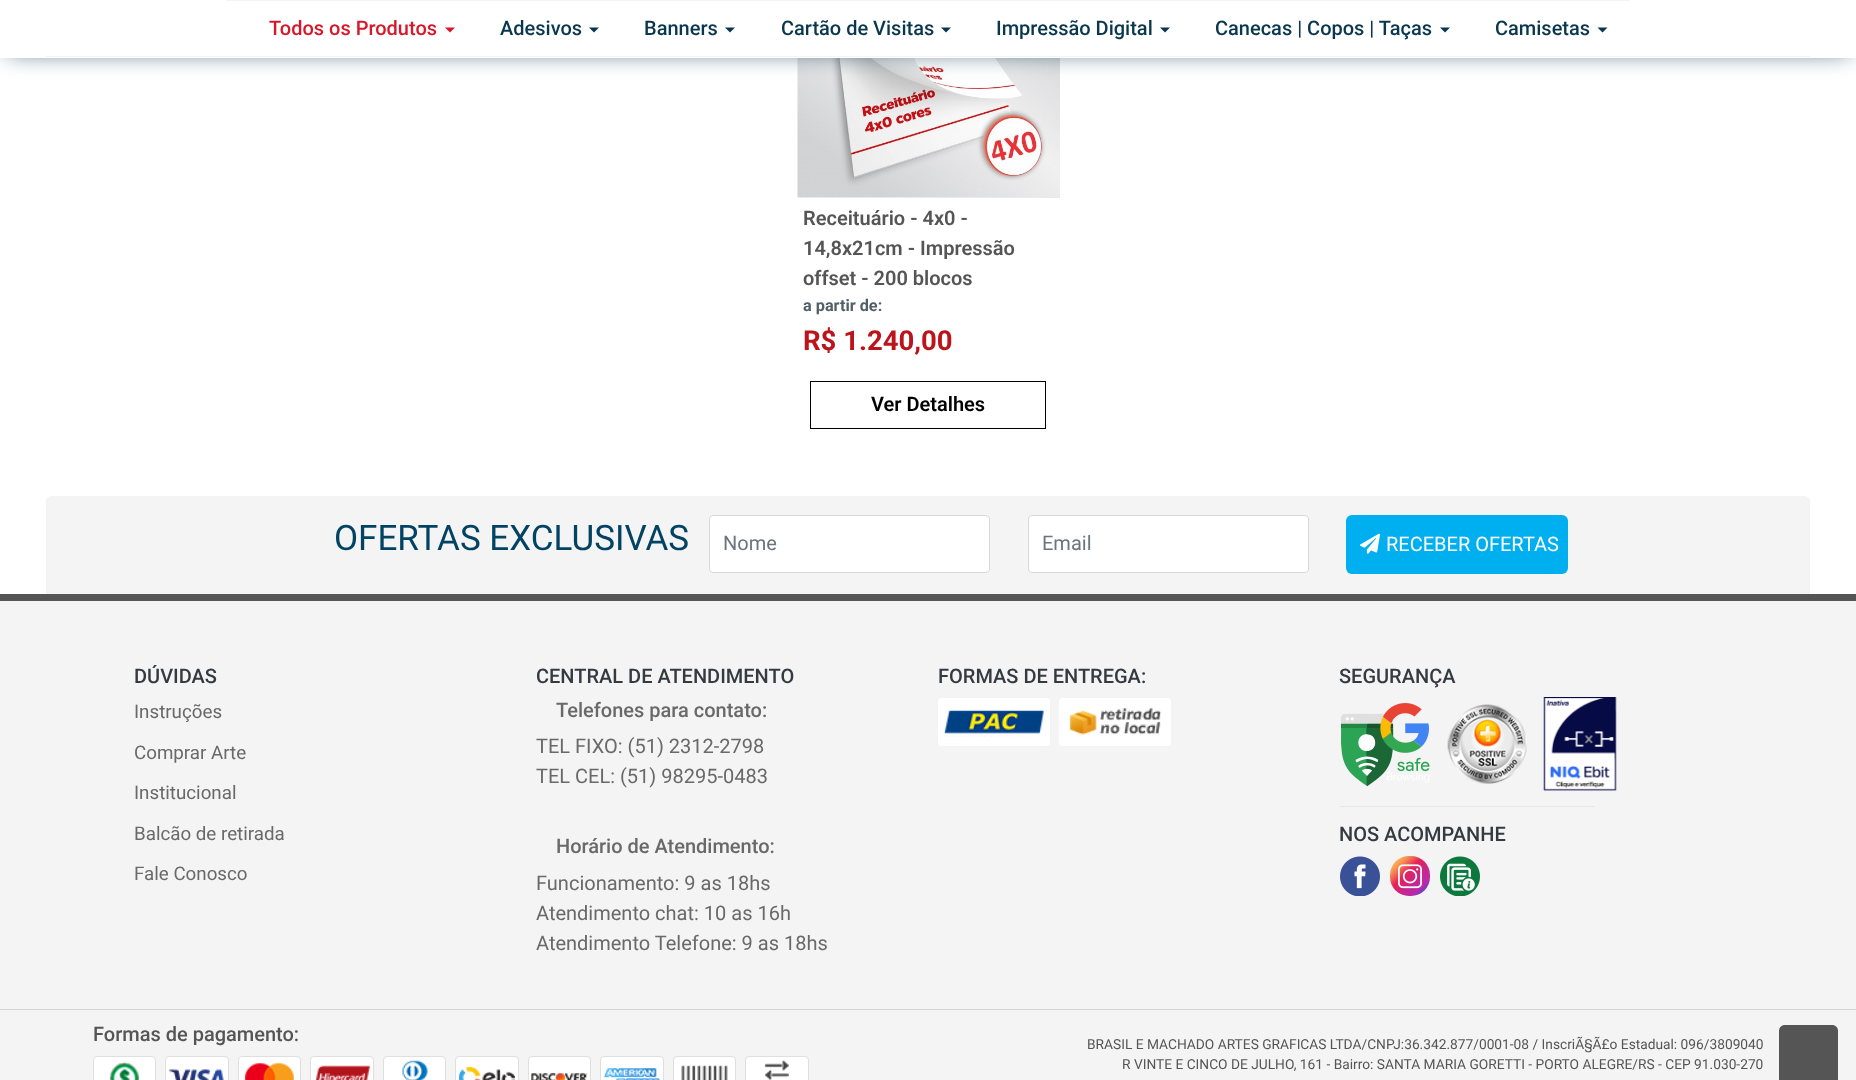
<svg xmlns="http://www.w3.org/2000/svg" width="1856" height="1080">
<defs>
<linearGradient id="g1" gradientUnits="userSpaceOnUse" x1="1430" y1="896" x2="1390" y2="856"><stop offset="0" stop-color="#f4f4f4"/><stop offset="0.12" stop-color="#5d3fd2"/><stop offset="0.22" stop-color="#b829a9"/><stop offset="0.3" stop-color="#bf289d"/><stop offset="0.44" stop-color="#d0257e"/><stop offset="0.58" stop-color="#e62256"/><stop offset="0.61" stop-color="#e83156"/><stop offset="0.67" stop-color="#ee5755"/><stop offset="0.78" stop-color="#f89554"/><stop offset="0.92" stop-color="#ffc153"/><stop offset="1" stop-color="#f4f4f4"/></linearGradient>
</defs>
<rect width="100%" height="100%" fill="#fff"/>
<image x="797" y="58" width="263" height="139" href="media/1.png"/>
<rect x="8" y="8" width="1841" height="41" fill="#08374e" filter="blur(13px)"/>
<rect width="1856" height="58" fill="#fff"/>
<rect x="46" y="56" width="1764" height="1" fill="#f4f4f4"/>
<rect x="226" width="1404" height="1" fill="#f4f4f4"/>
<text x="269" y="35" style="font-family:Roboto;font-size:20px;font-weight:500;fill:#d7182a">Todos os Produtos</text>
<path d="M445 27.5h10l-5 5z" fill="#d7182a"/>
<text x="500" y="35" style="font-family:Roboto;font-size:20px;font-weight:500;fill:#08374e">Adesivos</text>
<path d="M589 27.5h10l-5 5z" fill="#08374e"/>
<text x="644" y="35" style="font-family:Roboto;font-size:20px;font-weight:500;fill:#08374e">Banners</text>
<path d="M725 27.5h10l-5 5z" fill="#08374e"/>
<text x="781" y="35" style="font-family:Roboto;font-size:20px;font-weight:500;fill:#08374e">Cartão de Visitas</text>
<path d="M941 27.5h10l-5 5z" fill="#08374e"/>
<text x="996" y="35" style="font-family:Roboto;font-size:20px;font-weight:500;fill:#08374e">Impressão Digital</text>
<path d="M1160 27.5h10l-5 5z" fill="#08374e"/>
<text x="1215" y="35" style="font-family:Roboto;font-size:20px;font-weight:500;fill:#08374e">Canecas | Copos | Taças</text>
<path d="M1440 27.5h10l-5 5z" fill="#08374e"/>
<text x="1495" y="35" style="font-family:Roboto;font-size:20px;font-weight:500;fill:#08374e">Camisetas</text>
<path d="M1597.5 27.5h10l-5 5z" fill="#08374e"/>
<rect x="798" y="197" width="262" height="1" fill="#e9eaea"/>
<text x="803" y="225" style="font-family:Roboto;font-size:20px;font-weight:600;fill:#555">Receituário - 4x0 -</text>
<text x="803" y="255" style="font-family:Roboto;font-size:20px;font-weight:600;fill:#555">14,8x21cm - Impressão</text>
<text x="803" y="285" style="font-family:Roboto;font-size:20px;font-weight:600;fill:#555">offset - 200 blocos</text>
<text x="803" y="311" style="font-family:Roboto;font-size:16.25px;font-weight:bold;fill:#516068">a partir de:</text>
<text x="803" y="350" style="font-family:Roboto;font-size:27.5px;font-weight:bold;fill:#bd141b">R$ 1.240,00</text>
<rect x="810.5" y="381.5" width="235" height="47" fill="none" stroke="#000"/>
<text x="871" y="411" style="font-family:Roboto;font-size:20px;font-weight:600;fill:#000">Ver Detalhes</text>
<path d="M52 496h1752c3.5 0 6 2.5 6 6v92h-1764v-92c0-3.5 2.5-6 6-6z" fill="#f4f4f4"/>
<text x="334" y="550" style="font-family:Roboto;font-size:35px;fill:#024364">OFERTAS EXCLUSIVAS</text>
<rect x="709.5" y="515.5" width="280" height="57" rx="3.5" fill="#fff" stroke="#d9d9d9"/>
<text x="723" y="550" style="font-family:Roboto;font-size:20px;fill:#6c757d">Nome</text>
<rect x="1028.5" y="515.5" width="280" height="57" rx="3.5" fill="#fff" stroke="#d9d9d9"/>
<text x="1042" y="550" style="font-family:Roboto;font-size:20px;fill:#6c757d">Email</text>
<rect x="1346" y="515" width="222" height="59" rx="6" fill="#00afef"/>
<image x="1360" y="533" width="20" height="21" href="media/2.png"/>
<text x="1386" y="551" style="font-family:Roboto;font-size:20px;fill:#fff">RECEBER OFERTAS</text>
<rect y="601" width="1856" height="408" fill="#f4f4f4"/>
<rect y="594" width="1856" height="7" fill="#555"/>
<text x="134" y="683" style="font-family:Roboto;font-size:20px;font-weight:500;fill:#343a40">DÚVIDAS</text>
<text x="134" y="718" style="font-family:Roboto;font-size:18.75px;fill:#696969">Instruções</text>
<text x="134" y="759" style="font-family:Roboto;font-size:18.75px;fill:#696969">Comprar Arte</text>
<text x="134" y="799" style="font-family:Roboto;font-size:18.75px;fill:#696969">Institucional</text>
<text x="134" y="840" style="font-family:Roboto;font-size:18.75px;fill:#696969">Balcão de retirada</text>
<text x="134" y="880" style="font-family:Roboto;font-size:18.75px;fill:#696969">Fale Conosco</text>
<text x="536" y="683" style="font-family:Roboto;font-size:20px;font-weight:500;fill:#343a40">CENTRAL DE ATENDIMENTO</text>
<text x="556" y="717" style="font-family:Roboto;font-size:20px;font-weight:500;fill:#696969">Telefones para contato:</text>
<text x="536" y="753" style="font-family:Roboto;font-size:20px;fill:#696969">TEL FIXO: (51) 2312-2798</text>
<text x="536" y="783" style="font-family:Roboto;font-size:20px;fill:#696969">TEL CEL: (51) 98295-0483</text>
<text x="556" y="853" style="font-family:Roboto;font-size:20px;font-weight:500;fill:#696969">Horário de Atendimento:</text>
<text x="536" y="890" style="font-family:Roboto;font-size:20px;fill:#696969">Funcionamento: 9 as 18hs</text>
<text x="536" y="920" style="font-family:Roboto;font-size:20px;fill:#696969">Atendimento chat: 10 as 16h</text>
<text x="536" y="950" style="font-family:Roboto;font-size:20px;fill:#696969">Atendimento Telefone: 9 as 18hs</text>
<text x="938" y="683" style="font-family:Roboto;font-size:20px;font-weight:500;fill:#343a40">FORMAS DE ENTREGA:</text>
<rect x="938" y="698" width="112" height="48" rx="4" fill="#fff"/>
<rect x="1059" y="698" width="112" height="48" rx="4" fill="#fff"/>
<image x="944" y="710" width="100" height="27" href="media/3.png"/>
<image x="1069" y="708" width="93" height="27" href="media/4.png"/>
<text x="1339" y="683" style="font-family:Roboto;font-size:20px;font-weight:500;fill:#343a40">SEGURANÇA</text>
<image x="1340" y="703" width="90" height="84" href="media/5.png"/>
<image x="1447" y="704" width="80" height="80" href="media/6.png"/>
<image x="1543" y="697" width="74" height="94" href="media/7.png"/>
<rect x="1340" y="806" width="255" height="1" fill="#e6e6e6"/>
<text x="1339" y="841" style="font-family:Roboto;font-size:20px;font-weight:500;fill:#343a40">NOS ACOMPANHE</text>
<image x="1340" y="856" width="40" height="40" href="media/8.png"/>
<rect x="1390" y="856" width="40" height="40" rx="19" fill="url(#g1)"/>
<image x="1398" y="864" width="24" height="25" href="media/9.png"/>
<image x="1440" y="856" width="40" height="40" href="media/10.png"/>
<rect y="1010" width="1856" height="70" fill="#f4f4f4"/>
<rect y="1009" width="1856" height="1" fill="#d4d4d3"/>
<text x="93" y="1041" style="font-family:Roboto;font-size:20px;font-weight:500;fill:#555">Formas de pagamento:</text>
<rect x="93.5" y="1056.5" width="62" height="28" rx="3.5" fill="#fff" stroke="#dfdfdf"/>
<rect x="165.5" y="1056.5" width="63" height="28" rx="3.5" fill="#fff" stroke="#dfdfdf"/>
<rect x="238.5" y="1056.5" width="62" height="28" rx="3.5" fill="#fff" stroke="#dfdfdf"/>
<rect x="310.5" y="1056.5" width="63" height="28" rx="3.5" fill="#fff" stroke="#dfdfdf"/>
<rect x="383.5" y="1056.5" width="62" height="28" rx="3.5" fill="#fff" stroke="#dfdfdf"/>
<rect x="455.5" y="1056.5" width="63" height="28" rx="3.5" fill="#fff" stroke="#dfdfdf"/>
<rect x="528.5" y="1056.5" width="62" height="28" rx="3.5" fill="#fff" stroke="#dfdfdf"/>
<rect x="600.5" y="1056.5" width="63" height="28" rx="3.5" fill="#fff" stroke="#dfdfdf"/>
<rect x="673.5" y="1056.5" width="62" height="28" rx="3.5" fill="#fff" stroke="#dfdfdf"/>
<rect x="745.5" y="1056.5" width="63" height="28" rx="3.5" fill="#fff" stroke="#dfdfdf"/>
<image x="109" y="1062" width="31" height="18" href="media/11.png"/>
<image x="168" y="1069" width="56" height="11" href="media/12.png"/>
<image x="244" y="1063" width="50" height="17" href="media/13.png"/>
<image x="315" y="1065" width="55" height="15" href="media/14.png"/>
<image x="402" y="1060" width="26" height="20" href="media/15.png"/>
<image x="458" y="1066" width="57" height="14" href="media/16.png"/>
<image x="531" y="1073" width="57" height="7" href="media/17.png"/>
<image x="603" y="1068" width="57" height="12" href="media/18.png"/>
<image x="681" y="1062" width="47" height="18" href="media/19.png"/>
<image x="764" y="1060" width="25" height="20" href="media/20.png"/>
<text x="1087" y="1049" style="font-family:Roboto;font-size:13.75px;fill:#555">BRASIL E MACHADO ARTES GRAFICAS LTDA/CNPJ:36.342.877/0001-08 / InscriÃ§Ã£o Estadual: 096/3809040</text>
<text x="1122" y="1069" style="font-family:Roboto;font-size:13.75px;fill:#555">R VINTE E CINCO DE JULHO, 161 - Bairro: SANTA MARIA GORETTI - PORTO ALEGRE/RS - CEP 91.030-270</text>
<path d="M1785 1025h47c3.5 0 6 2.5 6 6v49h-59v-49c0-3.5 2.5-6 6-6z" fill="#555"/>
</svg>
